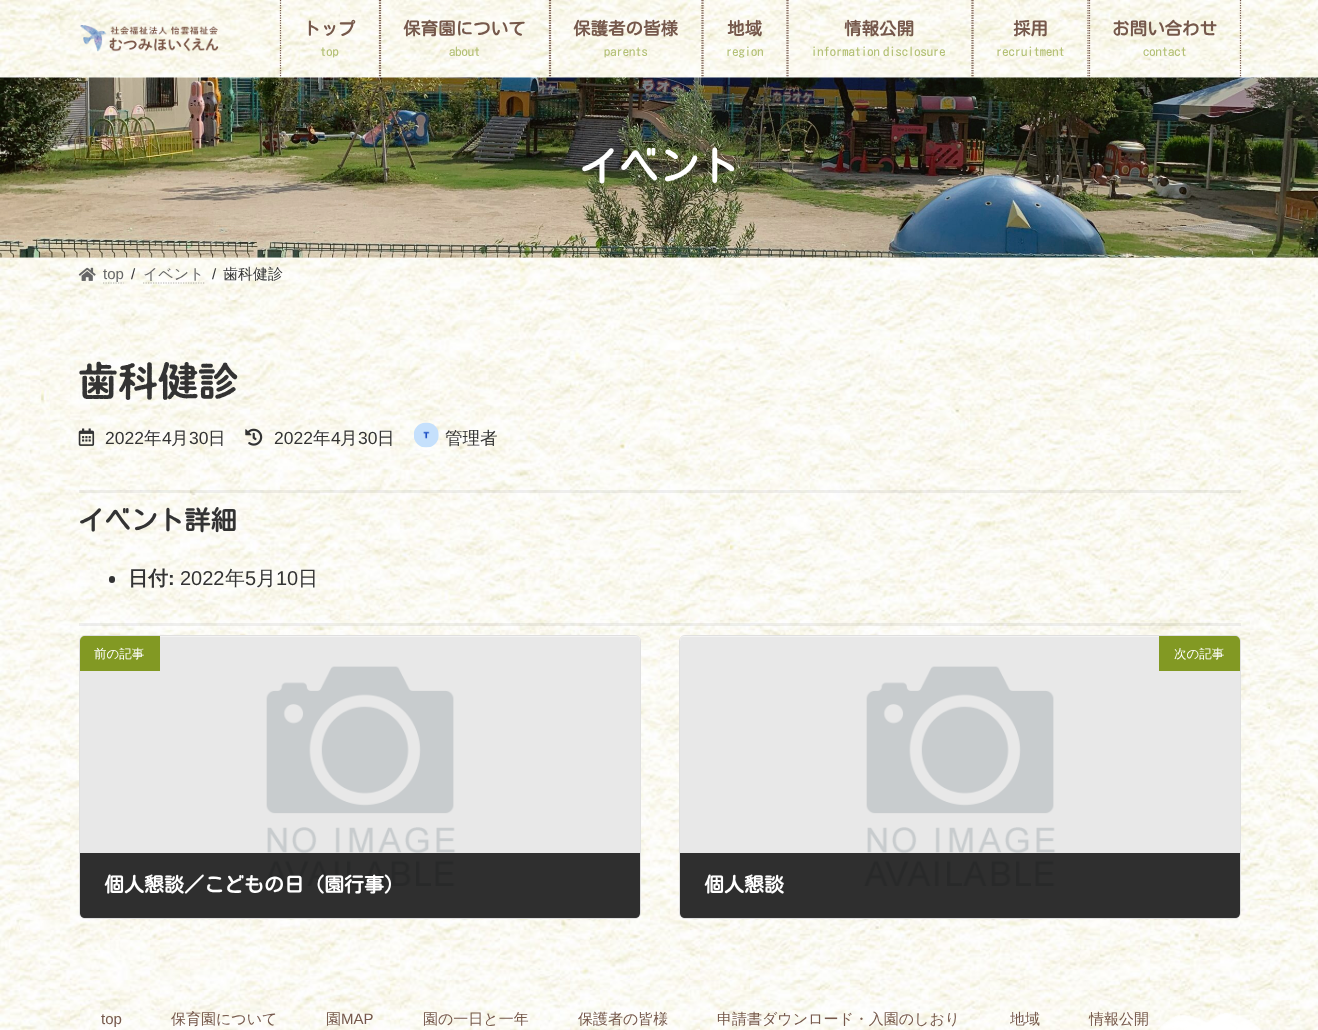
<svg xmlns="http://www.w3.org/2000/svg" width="1318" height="1030">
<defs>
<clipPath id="clip1"><rect x="80" y="636" width="560" height="282" rx="5"/></clipPath>
<clipPath id="clip2"><rect x="680" y="636" width="560" height="282" rx="5"/></clipPath>
</defs>
<rect width="100%" height="100%" fill="#fff"/>
<image x="0" y="0" width="1318" height="1030" href="media/1.png"/>
<image x="80" y="25" width="139" height="27" href="media/2.png"/>
<path d="M379.5 0v77.5" fill="none" stroke="#75584b" stroke-width="1.2" stroke-dasharray="1.25 1.25"/>
<path d="M280.5 0v77.5" fill="none" stroke="#75584b" stroke-width="1.2" stroke-dasharray="1.25 1.25"/>
<text x="303" y="35" style="font-family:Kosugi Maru;font-size:17.5px;font-weight:bold;fill:#75584b">トップ</text>
<text x="320" y="56" style="font-family:Kosugi Maru;font-size:12.5px;fill:#b2bf73">top</text>
<path d="M549.5 0v77.5" fill="none" stroke="#75584b" stroke-width="1.2" stroke-dasharray="1.25 1.25"/>
<path d="M380.5 0v77.5" fill="none" stroke="#75584b" stroke-width="1.2" stroke-dasharray="1.25 1.25"/>
<text x="403" y="35" style="font-family:Kosugi Maru;font-size:17.5px;font-weight:bold;fill:#75584b">保育園について</text>
<text x="449" y="56" style="font-family:Kosugi Maru;font-size:12.5px;fill:#b2bf73">about</text>
<path d="M702 0v77.5" fill="none" stroke="#75584b" stroke-width="1.2" stroke-dasharray="1.25 1.25"/>
<path d="M550.5 0v77.5" fill="none" stroke="#75584b" stroke-width="1.2" stroke-dasharray="1.25 1.25"/>
<text x="573" y="35" style="font-family:Kosugi Maru;font-size:17.5px;font-weight:bold;fill:#75584b">保護者の皆様</text>
<text x="604" y="56" style="font-family:Kosugi Maru;font-size:12.5px;fill:#b2bf73">parents</text>
<path d="M787 0v77.5" fill="none" stroke="#75584b" stroke-width="1.2" stroke-dasharray="1.25 1.25"/>
<path d="M703 0v77.5" fill="none" stroke="#75584b" stroke-width="1.2" stroke-dasharray="1.25 1.25"/>
<text x="727" y="35" style="font-family:Kosugi Maru;font-size:17.5px;font-weight:bold;fill:#75584b">地域</text>
<text x="726" y="56" style="font-family:Kosugi Maru;font-size:12.5px;fill:#b2bf73">region</text>
<path d="M972 0v77.5" fill="none" stroke="#75584b" stroke-width="1.2" stroke-dasharray="1.25 1.25"/>
<path d="M788 0v77.5" fill="none" stroke="#75584b" stroke-width="1.2" stroke-dasharray="1.25 1.25"/>
<text x="844" y="35" style="font-family:Kosugi Maru;font-size:17.5px;font-weight:bold;fill:#75584b">情報公開</text>
<text x="811" y="56" style="font-family:Kosugi Maru;font-size:12.5px;fill:#b2bf73">information disclosure</text>
<path d="M1088 0v77.5" fill="none" stroke="#75584b" stroke-width="1.2" stroke-dasharray="1.25 1.25"/>
<path d="M973 0v77.5" fill="none" stroke="#75584b" stroke-width="1.2" stroke-dasharray="1.25 1.25"/>
<text x="1013" y="35" style="font-family:Kosugi Maru;font-size:17.5px;font-weight:bold;fill:#75584b">採用</text>
<text x="996" y="56" style="font-family:Kosugi Maru;font-size:12.5px;fill:#b2bf73">recruitment</text>
<path d="M1240.5 0v77.5" fill="none" stroke="#75584b" stroke-width="1.2" stroke-dasharray="1.25 1.25"/>
<path d="M1089.5 0v77.5" fill="none" stroke="#75584b" stroke-width="1.2" stroke-dasharray="1.25 1.25"/>
<text x="1112" y="35" style="font-family:Kosugi Maru;font-size:17.5px;font-weight:bold;fill:#75584b">お問い合わせ</text>
<text x="1143" y="56" style="font-family:Kosugi Maru;font-size:12.5px;fill:#b2bf73">contact</text>
<image x="0" y="77" width="1318" height="181" href="media/3.png"/>
<rect y="78" width="1318" height="180" fill="#7c591b1a"/>
<text x="579" y="181" style="font-family:Kosugi Maru;font-size:40px;font-weight:bold;fill:#fff">イベント</text>
<image x="78" y="267" width="18" height="14" href="media/4.png"/>
<path d="M103 283h20.5" fill="none" stroke="#0000004d" stroke-width="1.2" stroke-dasharray="1.25 1.25"/>
<text x="103" y="279" style="font-family:Liberation Sans;font-size:15px;fill:#666">top</text>
<text x="131" y="279" style="font-family:Liberation Sans;font-size:15px;fill:#333">/</text>
<text x="143" y="279" style="font-family:WenQuanYi Zen Hei;font-size:15px;font-weight:500;fill:#666">イベント</text>
<path d="M143 283h61.5" fill="none" stroke="#0000004d" stroke-width="1.2" stroke-dasharray="1.25 1.25"/>
<text x="212" y="279" style="font-family:Liberation Sans;font-size:15px;fill:#333">/</text>
<text x="223" y="279" style="font-family:WenQuanYi Zen Hei;font-size:15px;font-weight:500;fill:#333">歯科健診</text>
<text x="78" y="396" style="font-family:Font;font-size:40px;font-weight:600;fill:#333">歯科健診</text>
<image x="78" y="428" width="17" height="18" href="media/5.png"/>
<text x="105" y="444" style="font-family:Liberation Sans;font-size:17.5px;fill:#333">2022</text>
<text x="144" y="444" style="font-family:WenQuanYi Zen Hei;font-size:17.5px;font-weight:500;fill:#333">年</text>
<text x="162" y="444" style="font-family:Liberation Sans;font-size:17.5px;fill:#333">4</text>
<text x="171" y="444" style="font-family:WenQuanYi Zen Hei;font-size:17.5px;font-weight:500;fill:#333">月</text>
<text x="189" y="444" style="font-family:Liberation Sans;font-size:17.5px;fill:#333">30</text>
<text x="208" y="444" style="font-family:WenQuanYi Zen Hei;font-size:17.5px;font-weight:500;fill:#333">日</text>
<image x="245" y="428" width="18" height="18" href="media/6.png"/>
<text x="274" y="444" style="font-family:Liberation Sans;font-size:17.5px;fill:#333">2022</text>
<text x="313" y="444" style="font-family:WenQuanYi Zen Hei;font-size:17.5px;font-weight:500;fill:#333">年</text>
<text x="331" y="444" style="font-family:Liberation Sans;font-size:17.5px;fill:#333">4</text>
<text x="340" y="444" style="font-family:WenQuanYi Zen Hei;font-size:17.5px;font-weight:500;fill:#333">月</text>
<text x="358" y="444" style="font-family:Liberation Sans;font-size:17.5px;fill:#333">30</text>
<text x="377" y="444" style="font-family:WenQuanYi Zen Hei;font-size:17.5px;font-weight:500;fill:#333">日</text>
<image x="414" y="422" width="25" height="26" href="media/7.png"/>
<text x="445" y="444" style="font-family:WenQuanYi Zen Hei;font-size:17.5px;font-weight:500;fill:#333">管理者</text>
<rect x="79" y="490" width="1162" height="3" fill="#0000000f"/>
<text x="78" y="530" style="font-family:Kosugi Maru;font-size:26.5px;font-weight:bold;fill:#333">イベント詳細</text>
<rect x="109" y="576" width="6" height="7" rx="3" fill="#333"/>
<text x="128" y="585" style="font-family:WenQuanYi Zen Hei;font-size:20px;font-weight:bold;fill:#333">日付</text>
<text x="168" y="585" style="font-family:Liberation Sans;font-size:20px;font-weight:bold;fill:#333">:</text>
<text x="180" y="585" style="font-family:Liberation Sans;font-size:20px;fill:#333">2022</text>
<text x="225" y="585" style="font-family:WenQuanYi Zen Hei;font-size:20px;font-weight:500;fill:#333">年</text>
<text x="245" y="585" style="font-family:Liberation Sans;font-size:20px;fill:#333">5</text>
<text x="256" y="585" style="font-family:WenQuanYi Zen Hei;font-size:20px;font-weight:500;fill:#333">月</text>
<text x="276" y="585" style="font-family:Liberation Sans;font-size:20px;fill:#333">10</text>
<text x="298" y="585" style="font-family:WenQuanYi Zen Hei;font-size:20px;font-weight:500;fill:#333">日</text>
<rect x="79" y="623" width="1162" height="3" fill="#0000000f"/>
<rect x="79" y="635" width="562" height="284" rx="6" fill="#fff"/>
<rect x="79.5" y="635.5" width="561" height="283" rx="5.5" fill="none" stroke="#0000001f"/>
<image x="80" y="636" width="560" height="282" href="media/8.png"/>
<g clip-path="url(#clip1)">
<rect x="80" y="916" width="560" height="1" fill="#e5e5e5"/>
</g>
<path d="M85 636h75v35h-80v-30c0-3 2-5 5-5z" fill="#829923"/>
<text x="94" y="658" style="font-family:WenQuanYi Zen Hei;font-size:12.5px;font-weight:500;fill:#fff">前の記事</text>
<path d="M80 853h560v60c0 3-2 5-5 5h-550c-3 0-5-2-5-5z" fill="#000000cc"/>
<text x="104" y="892" style="font-family:Kosugi Maru;font-size:20px;font-weight:bold;fill:#fff">個人懇談／こどもの日（園行事）</text>
<rect x="679" y="635" width="562" height="284" rx="6" fill="#fff"/>
<rect x="679.5" y="635.5" width="561" height="283" rx="5.5" fill="none" stroke="#0000001f"/>
<image x="680" y="636" width="560" height="282" href="media/9.png"/>
<g clip-path="url(#clip2)">
<rect x="680" y="916" width="560" height="1" fill="#e5e5e5"/>
</g>
<path d="M1159 636h76c3 0 5 2 5 5v30h-81z" fill="#829923"/>
<text x="1174" y="658" style="font-family:WenQuanYi Zen Hei;font-size:12.5px;font-weight:500;fill:#fff">次の記事</text>
<path d="M680 853h560v60c0 3-2 5-5 5h-550c-3 0-5-2-5-5z" fill="#000000cc"/>
<text x="704" y="892" style="font-family:Kosugi Maru;font-size:20px;font-weight:bold;fill:#fff">個人懇談</text>
<image x="1158" y="1013" width="104" height="17" href="media/10.png"/>
<text x="101" y="1024" style="font-family:Liberation Sans;font-size:15px;fill:#75584b">top</text>
<text x="171" y="1024" style="font-family:WenQuanYi Zen Hei;font-size:15px;font-weight:500;fill:#75584b">保育園について</text>
<text x="326" y="1024" style="font-family:WenQuanYi Zen Hei;font-size:15px;font-weight:500;fill:#75584b">園</text>
<text x="341" y="1024" style="font-family:Liberation Sans;font-size:15px;fill:#75584b">MAP</text>
<text x="423" y="1024" style="font-family:WenQuanYi Zen Hei;font-size:15px;font-weight:500;fill:#75584b">園の一日と一年</text>
<text x="578" y="1024" style="font-family:WenQuanYi Zen Hei;font-size:15px;font-weight:500;fill:#75584b">保護者の皆様</text>
<text x="717" y="1024" style="font-family:WenQuanYi Zen Hei;font-size:15px;font-weight:500;fill:#75584b">申請書ダウンロード・入園のしおり</text>
<text x="1010" y="1024" style="font-family:WenQuanYi Zen Hei;font-size:15px;font-weight:500;fill:#75584b">地域</text>
<text x="1089" y="1024" style="font-family:WenQuanYi Zen Hei;font-size:15px;font-weight:500;fill:#75584b">情報公開</text>
</svg>
